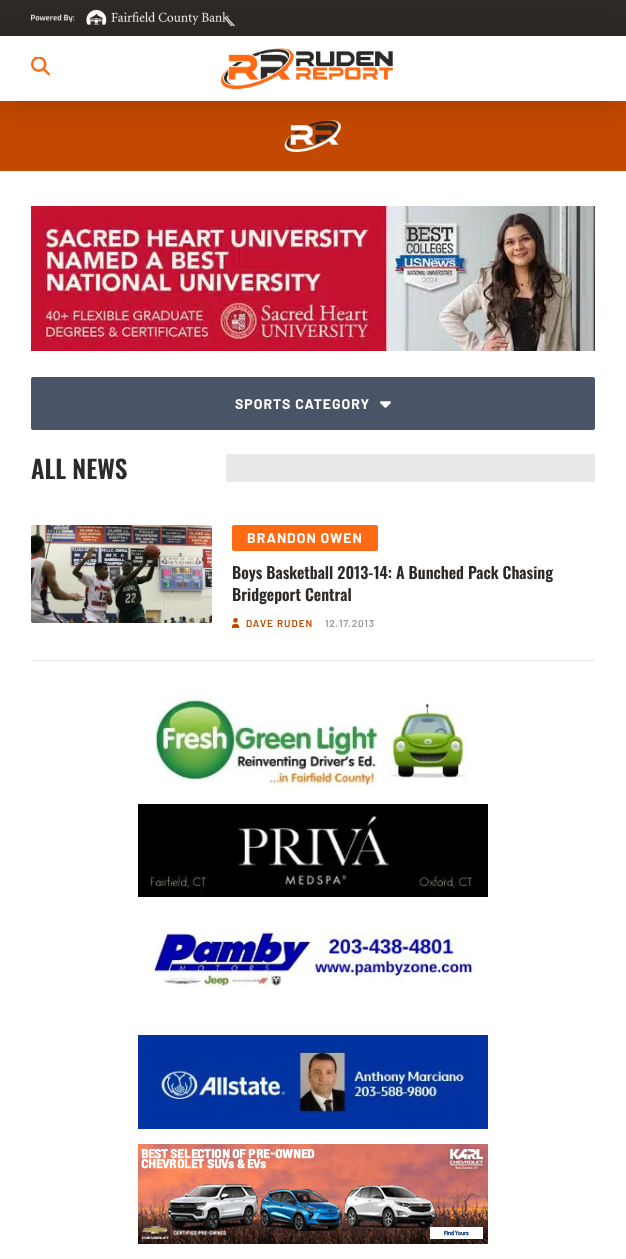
<svg xmlns="http://www.w3.org/2000/svg" width="626" height="1259">
<defs>
<clipPath id="clip1"><path d="M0 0h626v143h-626zm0 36h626v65h-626z" clip-rule="evenodd"/></clipPath>
</defs>
<rect width="100%" height="100%" fill="#fff"/>
<rect width="626" height="36" fill="#2d2926"/>
<image x="31" y="9" width="205" height="18" href="media/1.png"/>
<rect y="101" width="626" height="70" fill="#c34800"/>
<image x="284" y="120" width="57" height="32" href="media/4.png"/>
<g clip-path="url(#clip1)">
<rect y="39" width="626" height="65" fill="#00000026" filter="blur(12.5px)"/>
</g>
<image x="31" y="57" width="19" height="19" href="media/2.png"/>
<image x="221" y="48" width="172" height="41" href="media/3.png"/>
<image x="31" y="206" width="564" height="145" href="media/5.png"/>
<rect x="31" y="377" width="564" height="53" rx="2" fill="#495567"/>
<text x="235" y="409" style="font-family:Barlow;font-size:14px;font-weight:bold;letter-spacing:1px;fill:#fff">SPORTS CATEGORY</text>
<image x="380" y="401" width="11" height="7" href="media/6.png"/>
<text x="31" y="479" style="font-family:Oswald;font-size:25px;font-weight:600;fill:#2d2926">ALL NEWS</text>
<rect x="226" y="454" width="369" height="28" fill="#e9e9e9"/>
<rect x="31" y="660" width="564" height="1" fill="#e9e9e9"/>
<image x="31" y="525" width="181" height="98" href="media/7.png"/>
<rect x="232" y="525" width="146" height="26" rx="2" fill="#ff6a13"/>
<text x="247" y="543" style="font-family:Barlow;font-size:14px;font-weight:bold;letter-spacing:1px;fill:#fff">BRANDON OWEN</text>
<text x="232" y="579" style="font-family:Oswald;font-size:16px;font-weight:600;fill:#2d2926">Boys Basketball 2013-14: A Bunched Pack Chasing</text>
<text x="232" y="601" style="font-family:Oswald;font-size:16px;font-weight:600;fill:#2d2926">Bridgeport Central</text>
<image x="232" y="618" width="7" height="10" href="media/8.png"/>
<text x="246" y="627" style="font-family:Barlow;font-size:10px;font-weight:600;letter-spacing:1px;fill:#c34800">DAVE RUDEN</text>
<text x="325" y="627" style="font-family:Barlow;font-size:10px;font-weight:600;letter-spacing:0.75px;fill:#999">12.17.2013</text>
<image x="153" y="696" width="315" height="91" href="media/9.png"/>
<image x="138" y="804" width="350" height="93" href="media/10.png"/>
<image x="153" y="927" width="323" height="60" href="media/11.png"/>
<image x="138" y="1035" width="350" height="94" href="media/12.png"/>
<image x="138" y="1144" width="350" height="100" href="media/13.png"/>
</svg>
